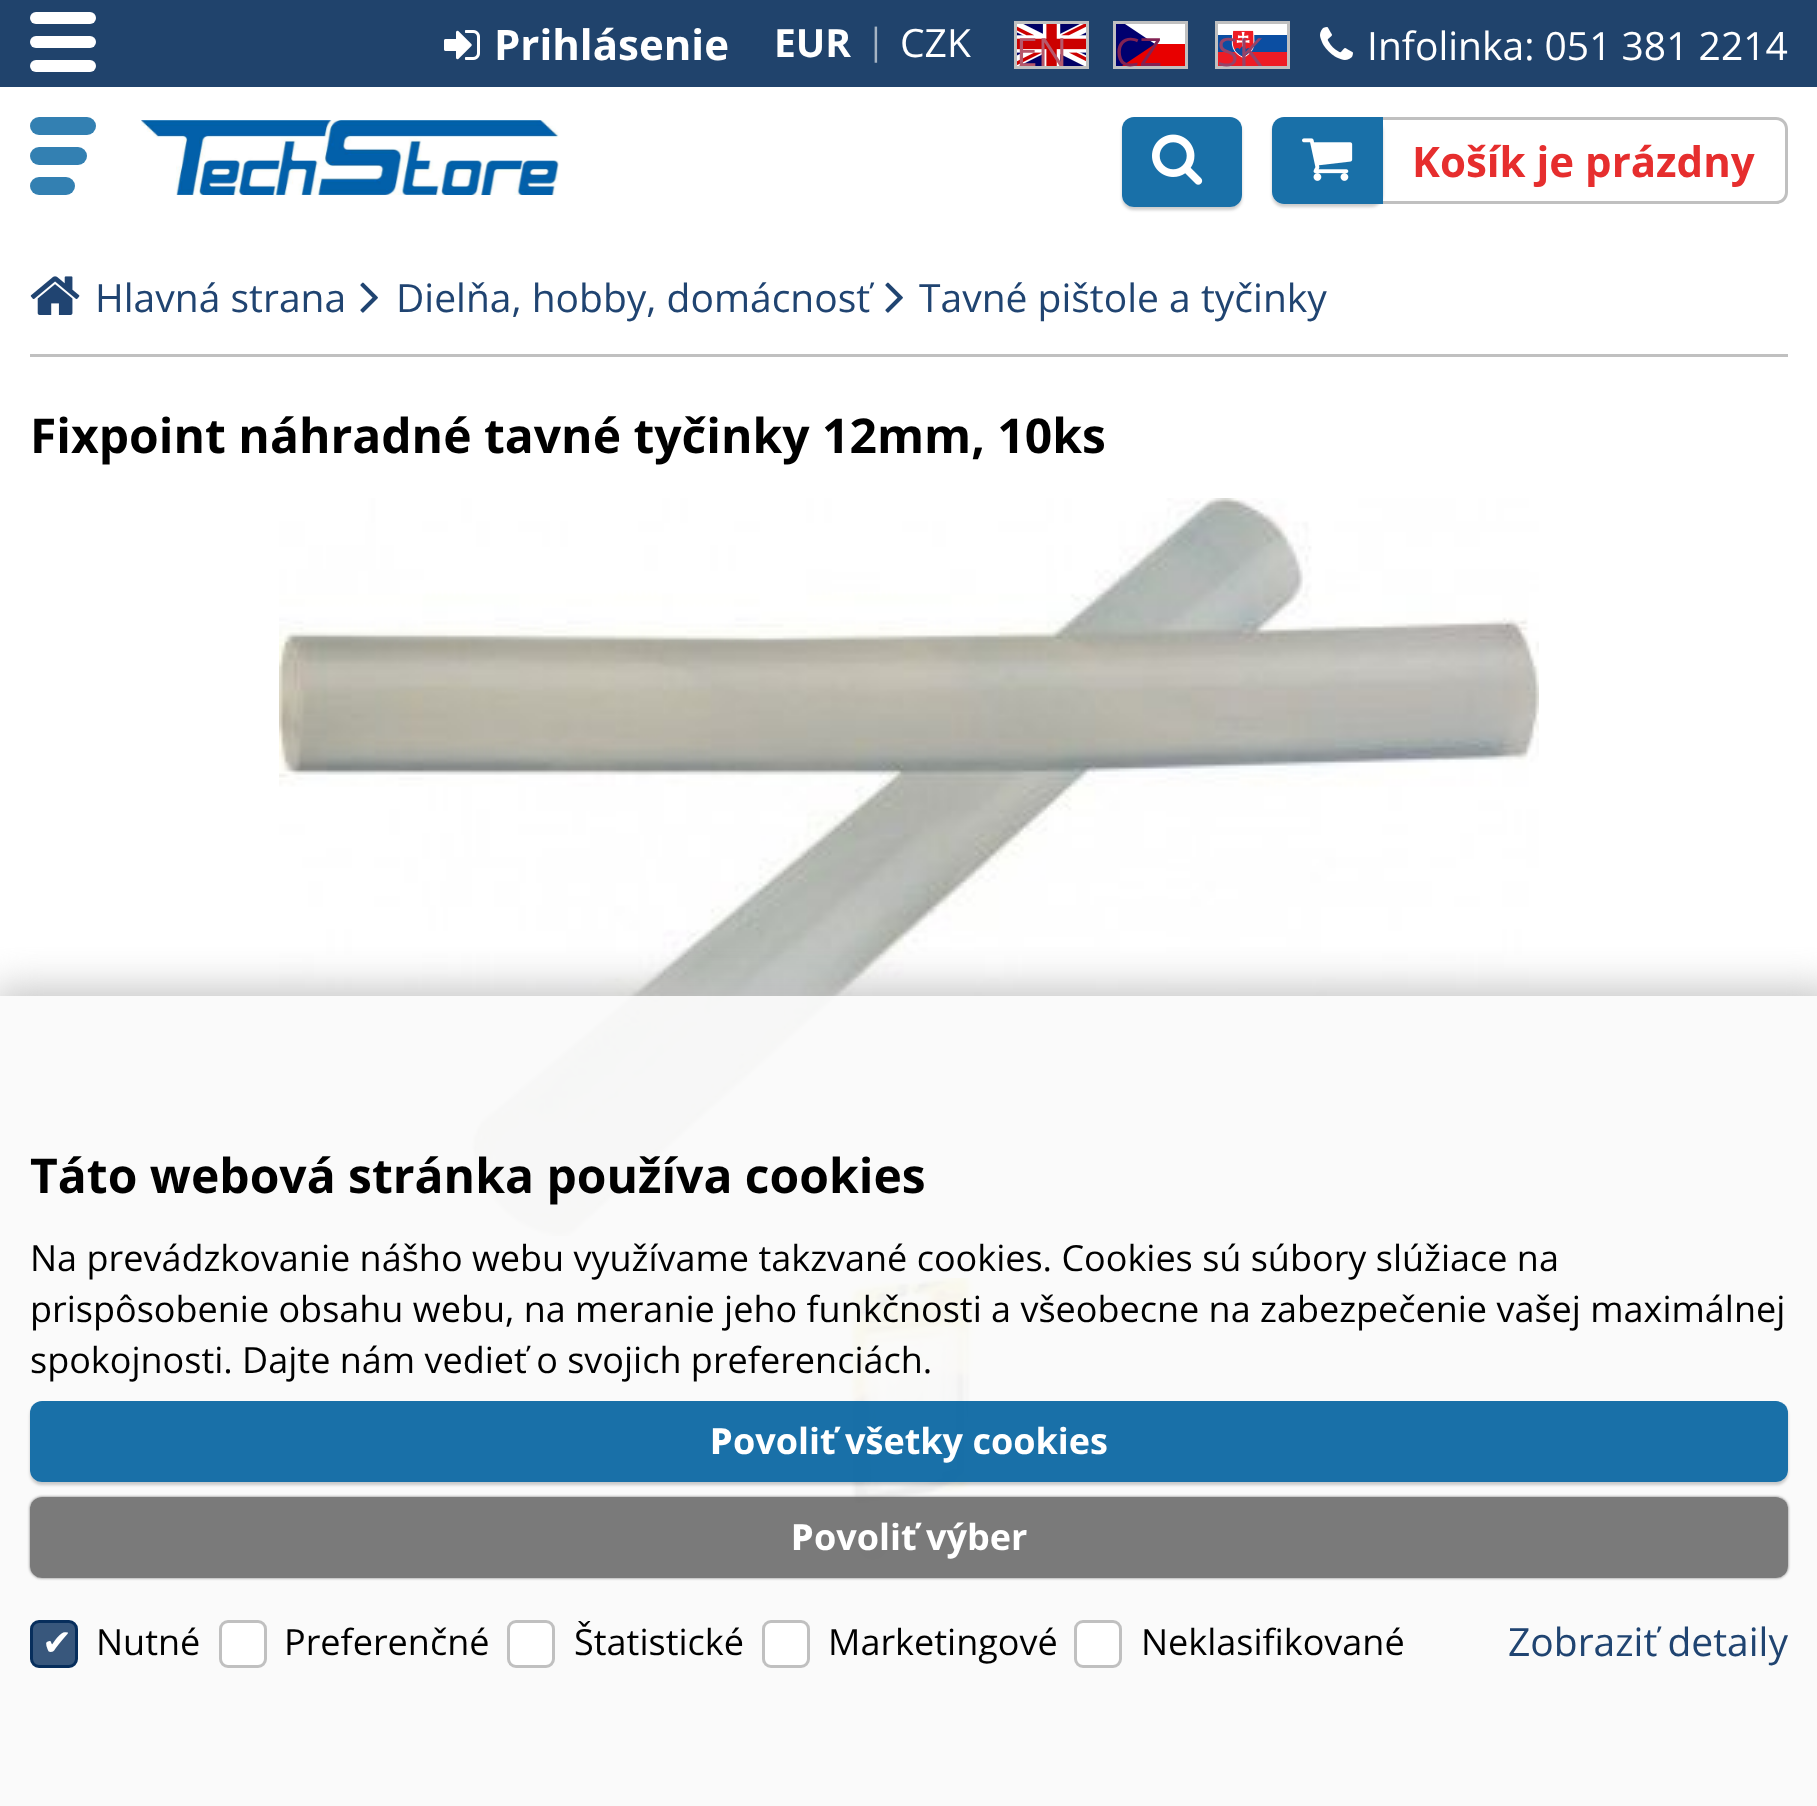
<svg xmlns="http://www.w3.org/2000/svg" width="1817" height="1806">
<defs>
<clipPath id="clip1"><rect x="1116" y="21" width="69" height="48"/></clipPath>
<clipPath id="clip2"><path d="M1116 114h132v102h-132zm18 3h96c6.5 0 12 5.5 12 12v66c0 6.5-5.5 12-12 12h-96c-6.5 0-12-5.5-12-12v-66c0-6.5 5.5-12 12-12z" clip-rule="evenodd"/></clipPath>
<clipPath id="clip3"><path d="M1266 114h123v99h-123zm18 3h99v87h-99c-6.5 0-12-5.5-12-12v-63c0-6.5 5.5-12 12-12z" clip-rule="evenodd"/></clipPath>
<clipPath id="clip4"><rect x="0" y="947" width="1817" height="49"/></clipPath>
<clipPath id="clip5"><path d="M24 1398h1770v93h-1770zm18 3h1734c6.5 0 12 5.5 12 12v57c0 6.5-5.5 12-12 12h-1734c-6.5 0-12-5.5-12-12v-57c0-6.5 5.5-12 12-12z" clip-rule="evenodd"/></clipPath>
<clipPath id="clip6"><path d="M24 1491h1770v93h-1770zm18 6h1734c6.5 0 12 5.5 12 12v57c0 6.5-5.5 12-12 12h-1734c-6.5 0-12-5.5-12-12v-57c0-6.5 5.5-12 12-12z" clip-rule="evenodd"/></clipPath>
</defs>
<rect width="100%" height="100%" fill="#fff"/>
<rect width="1817" height="87" fill="#20436c"/>
<rect x="30" y="12" width="66" height="12" rx="6" fill="#fff"/>
<rect x="30" y="36" width="66" height="12" rx="6" fill="#fff"/>
<rect x="30" y="60" width="66" height="12" rx="6" fill="#fff"/>
<image x="444" y="30" width="36" height="30" href="media/1.png"/>
<text x="494" y="60" style="font-family:Open Sans;font-size:42px;font-weight:bold;fill:#fff">Prihlásenie</text>
<text x="774" y="57" style="font-family:Open Sans;font-size:39px;font-weight:bold;fill:#fff">EUR</text>
<text x="866" y="54" style="font-family:Open Sans;font-size:36px;fill:#a6b4c4">|</text>
<text x="900" y="57" style="font-family:Open Sans;font-size:39px;fill:#fff">CZK</text>
<image x="1017" y="24" width="69" height="42" href="media/2.png"/>
<rect x="1015.5" y="22.5" width="72" height="45" fill="none" stroke="#c0c0c0" stroke-width="3"/>
<text x="1016" y="66" style="font-family:Open Sans;font-size:39px;fill:#b6586b">EN</text>
<rect x="1122" y="44" width="63" height="22" fill="#e80000"/>
<rect x="1125" y="24" width="60" height="20" fill="#fff"/>
<g clip-path="url(#clip1)">
<path d="M1116 18l39 26l-39 26z" fill="#00006f" fill-rule="evenodd"/>
</g>
<rect x="1114.5" y="22.5" width="72" height="45" fill="none" stroke="#c0c0c0" stroke-width="3"/>
<text x="1115" y="66" style="font-family:Open Sans;font-size:39px;fill:#822253">CZ</text>
<image x="1218" y="24" width="69" height="42" href="media/3.png"/>
<rect x="1216.5" y="22.5" width="72" height="45" fill="none" stroke="#c0c0c0" stroke-width="3"/>
<text x="1217" y="66" style="font-family:Open Sans;font-size:39px;fill:#944369">SK</text>
<image x="1320" y="27" width="33" height="33" href="media/4.png"/>
<text x="1367" y="60" style="font-family:Open Sans;font-size:39px;fill:#fff">Infolinka: 051 381 2214</text>
<rect x="30" y="117" width="66" height="18" rx="9" fill="#3380b2"/>
<rect x="30" y="147" width="57" height="18" rx="9" fill="#3380b2"/>
<rect x="30" y="177" width="45" height="18" rx="9" fill="#3380b2"/>
<image x="141" y="120" width="418" height="75" href="media/5.png"/>
<g clip-path="url(#clip2)">
<rect x="1122" y="120" width="120" height="90" rx="12" fill="#00000033" filter="blur(1.5px)"/>
</g>
<rect x="1122" y="117" width="120" height="90" rx="12" fill="#00609fe6"/>
<image x="1152" y="134" width="51" height="51" href="media/6.png"/>
<path d="M1383 117h393c7 0 12 5 12 12v63c0 7-5 12-12 12h-393zm0 3h393c5 0 9 4 9 9v63c0 5-4 9-9 9h-393z" fill="#c0c0c0" fill-rule="evenodd"/>
<g clip-path="url(#clip3)">
<rect x="1272" y="120" width="111" height="87" rx="12" fill="#00000033" filter="blur(1.5px)"/>
</g>
<path d="M1284 117h99v87h-99c-6.5 0-12-5.5-12-12v-63c0-6.5 5.5-12 12-12z" fill="#00609fe6"/>
<image x="1302" y="138" width="51" height="43" href="media/7.png"/>
<text x="1412" y="177" style="font-family:Open Sans;font-size:42px;font-weight:bold;fill:#e62e2e">Košík je prázdny</text>
<rect x="30" y="354" width="1758" height="3" fill="#c0c0c0"/>
<image x="30" y="276" width="50" height="39" href="media/8.png"/>
<text x="95" y="312" style="font-family:Open Sans;font-size:39px;fill:#204471">Hlavná strana</text>
<image x="360" y="282" width="18" height="31" href="media/9.png"/>
<text x="396" y="312" style="font-family:Open Sans;font-size:39px;fill:#204471">Dielňa, hobby, domácnosť</text>
<image x="885" y="282" width="18" height="31" href="media/9.png"/>
<text x="919" y="312" style="font-family:Open Sans;font-size:39px;fill:#204471">Tavné pištole a tyčinky</text>
<text x="30" y="453" style="font-family:Open Sans;font-size:48px;font-weight:bold;fill:#000">Fixpoint náhradné tavné tyčinky 12mm, 10ks</text>
<image x="279" y="498" width="1260" height="738" href="media/10.png"/>
<image x="844" y="1278" width="149" height="225" href="media/11.png"/>
<circle cx="873" cy="1545" r="15" fill="#869791"/>
<circle cx="945" cy="1545" r="15" fill="#d6d6d6"/>
<rect x="30" y="1647" width="1758" height="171" rx="12" fill="#efefef"/>
<g clip-path="url(#clip4)">
<rect x="-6" y="990" width="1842" height="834" fill="#c0c0c0" filter="blur(21px)"/>
</g>
<rect y="996" width="1817" height="810" fill="#fafafaf2"/>
<text x="30" y="1193" style="font-family:Open Sans;font-size:48px;font-weight:bold;fill:#000">Táto webová stránka používa cookies</text>
<text x="30" y="1271" style="font-family:Open Sans;font-size:36px;fill:#000">Na prevádzkovanie nášho webu využívame takzvané cookies. Cookies sú súbory slúžiace na</text>
<text x="30" y="1322" style="font-family:Open Sans;font-size:36px;fill:#000">prispôsobenie obsahu webu, na meranie jeho funkčnosti a všeobecne na zabezpečenie vašej maximálnej</text>
<text x="30" y="1373" style="font-family:Open Sans;font-size:36px;fill:#000">spokojnosti. Dajte nám vedieť o svojich preferenciách.</text>
<g clip-path="url(#clip5)">
<rect x="30" y="1404" width="1758" height="81" rx="12" fill="#00000033" filter="blur(1.5px)"/>
</g>
<rect x="30" y="1401" width="1758" height="81" rx="12" fill="#00609fe6"/>
<text x="710" y="1454" style="font-family:Noto Sans;font-size:36px;font-weight:800;fill:#fff">P</text>
<text x="733" y="1454" style="font-family:Open Sans;font-size:36px;font-weight:bold;fill:#fff">ovoliť všetky cookies</text>
<g clip-path="url(#clip6)">
<rect x="30" y="1497" width="1758" height="81" rx="12" fill="#5a5a5acc" filter="blur(1.5px)"/>
</g>
<rect x="30" y="1497" width="1758" height="81" rx="12" fill="#5a5a5acc"/>
<text x="791" y="1550" style="font-family:Noto Sans;font-size:36px;font-weight:800;fill:#fff">P</text>
<text x="814" y="1550" style="font-family:Open Sans;font-size:36px;font-weight:bold;fill:#fff">ovoliť výber</text>
<rect x="31.5" y="1621.5" width="45" height="45" rx="7.5" fill="#38577c" stroke="#072e5c" stroke-width="3"/>
<text x="96" y="1655" style="font-family:Open Sans;font-size:36px;fill:#000">Nutné</text>
<text x="42" y="1655" style="font-family:DejaVu Sans;font-size:36px;fill:#fff">✔</text>
<rect x="220.5" y="1621.5" width="45" height="45" rx="7.5" fill="#fff" stroke="#c0c0c0" stroke-width="3"/>
<text x="284" y="1655" style="font-family:Open Sans;font-size:36px;fill:#000">Preferenčné</text>
<rect x="508.5" y="1621.5" width="45" height="45" rx="7.5" fill="#fff" stroke="#c0c0c0" stroke-width="3"/>
<text x="574" y="1655" style="font-family:Open Sans;font-size:36px;fill:#000">Štatistické</text>
<rect x="763.5" y="1621.5" width="45" height="45" rx="7.5" fill="#fff" stroke="#c0c0c0" stroke-width="3"/>
<text x="828" y="1655" style="font-family:Open Sans;font-size:36px;fill:#000">Marketingové</text>
<rect x="1075.5" y="1621.5" width="45" height="45" rx="7.5" fill="#fff" stroke="#c0c0c0" stroke-width="3"/>
<text x="1141" y="1655" style="font-family:Open Sans;font-size:36px;fill:#000">Neklasifikované</text>
<text x="1508" y="1656" style="font-family:Open Sans;font-size:39px;fill:#204471">Zobraziť detaily</text>
</svg>
